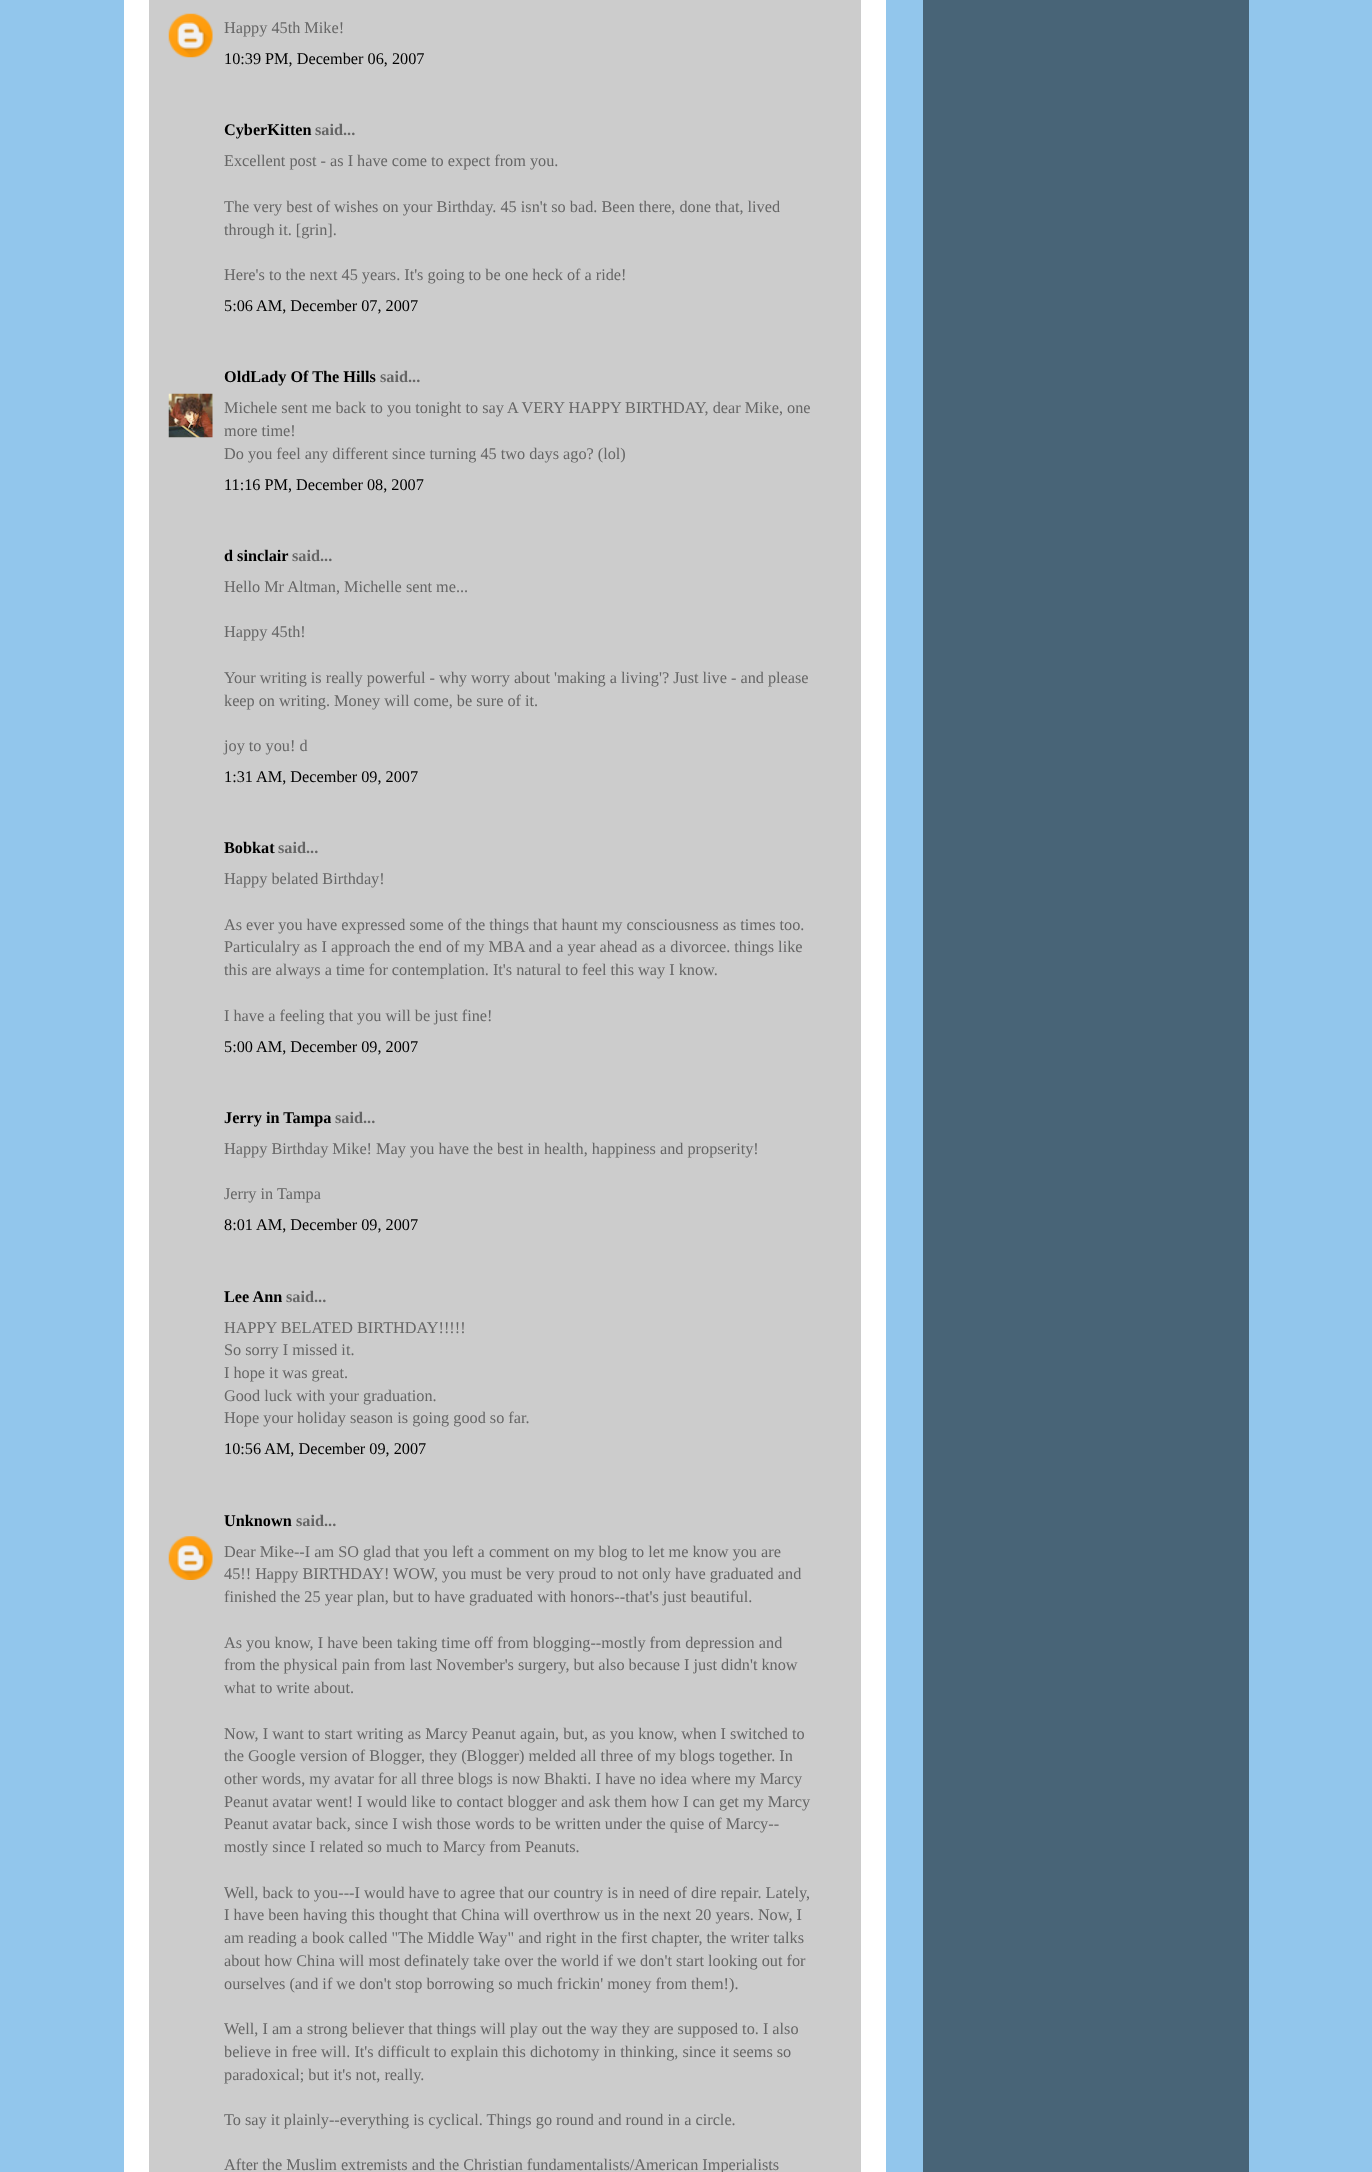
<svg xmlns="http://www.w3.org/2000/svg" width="1372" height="2172">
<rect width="100%" height="100%" fill="#92c6ec"/>
<rect x="124" width="762" height="2172" fill="#fff"/>
<rect x="149" width="712" height="2172" fill="#ccc"/>
<image x="168" y="13" width="45" height="45" href="media/1.png"/>
<text x="224" y="33" style="font-family:Liberation Serif;font-size:16.25px;fill:#666">Happy 45th Mike!</text>
<text x="224" y="64" style="font-family:Liberation Serif;font-size:16.25px;fill:#000">10:39 PM, December 06, 2007</text>
<text x="224" y="135" style="font-family:Liberation Serif;font-size:16.25px;font-weight:bold;fill:#000">CyberKitten</text>
<text x="315" y="135" style="font-family:Liberation Serif;font-size:16.25px;font-weight:bold;fill:#666">said...</text>
<text x="224" y="166" style="font-family:Liberation Serif;font-size:16.25px;fill:#666">Excellent post - as I have come to expect from you.</text>
<text x="224" y="212" style="font-family:Liberation Serif;font-size:16.25px;fill:#666">The very best of wishes on your Birthday. 45 isn't so bad. Been there, done that, lived</text>
<text x="224" y="235" style="font-family:Liberation Serif;font-size:16.25px;fill:#666">through it. [grin].</text>
<text x="224" y="280" style="font-family:Liberation Serif;font-size:16.25px;fill:#666">Here's to the next 45 years. It's going to be one heck of a ride!</text>
<text x="224" y="311" style="font-family:Liberation Serif;font-size:16.25px;fill:#000">5:06 AM, December 07, 2007</text>
<text x="224" y="382" style="font-family:Liberation Serif;font-size:16.25px;font-weight:bold;fill:#000">OldLady Of The Hills</text>
<text x="380" y="382" style="font-family:Liberation Serif;font-size:16.25px;font-weight:bold;fill:#666">said...</text>
<image x="168" y="393" width="45" height="45" href="media/2.png"/>
<text x="224" y="413" style="font-family:Liberation Serif;font-size:16.25px;fill:#666">Michele sent me back to you tonight to say A VERY HAPPY BIRTHDAY, dear Mike, one</text>
<text x="224" y="436" style="font-family:Liberation Serif;font-size:16.25px;fill:#666">more time!</text>
<text x="224" y="459" style="font-family:Liberation Serif;font-size:16.25px;fill:#666">Do you feel any different since turning 45 two days ago? (lol)</text>
<text x="224" y="490" style="font-family:Liberation Serif;font-size:16.25px;fill:#000">11:16 PM, December 08, 2007</text>
<text x="224" y="561" style="font-family:Liberation Serif;font-size:16.25px;font-weight:bold;fill:#000">d sinclair</text>
<text x="292" y="561" style="font-family:Liberation Serif;font-size:16.25px;font-weight:bold;fill:#666">said...</text>
<text x="224" y="592" style="font-family:Liberation Serif;font-size:16.25px;fill:#666">Hello Mr Altman, Michelle sent me...</text>
<text x="224" y="637" style="font-family:Liberation Serif;font-size:16.25px;fill:#666">Happy 45th!</text>
<text x="224" y="683" style="font-family:Liberation Serif;font-size:16.25px;fill:#666">Your writing is really powerful - why worry about 'making a living'? Just live - and please</text>
<text x="224" y="706" style="font-family:Liberation Serif;font-size:16.25px;fill:#666">keep on writing. Money will come, be sure of it.</text>
<text x="224" y="751" style="font-family:Liberation Serif;font-size:16.25px;fill:#666">joy to you! d</text>
<text x="224" y="782" style="font-family:Liberation Serif;font-size:16.25px;fill:#000">1:31 AM, December 09, 2007</text>
<text x="224" y="853" style="font-family:Liberation Serif;font-size:16.25px;font-weight:bold;fill:#000">Bobkat</text>
<text x="278" y="853" style="font-family:Liberation Serif;font-size:16.25px;font-weight:bold;fill:#666">said...</text>
<text x="224" y="884" style="font-family:Liberation Serif;font-size:16.25px;fill:#666">Happy belated Birthday!</text>
<text x="224" y="930" style="font-family:Liberation Serif;font-size:16.25px;fill:#666">As ever you have expressed some of the things that haunt my consciousness as times too.</text>
<text x="224" y="952" style="font-family:Liberation Serif;font-size:16.25px;fill:#666">Particulalry as I approach the end of my MBA and a year ahead as a divorcee. things like</text>
<text x="224" y="975" style="font-family:Liberation Serif;font-size:16.25px;fill:#666">this are always a time for contemplation. It's natural to feel this way I know.</text>
<text x="224" y="1021" style="font-family:Liberation Serif;font-size:16.25px;fill:#666">I have a feeling that you will be just fine!</text>
<text x="224" y="1052" style="font-family:Liberation Serif;font-size:16.25px;fill:#000">5:00 AM, December 09, 2007</text>
<text x="224" y="1123" style="font-family:Liberation Serif;font-size:16.25px;font-weight:bold;fill:#000">Jerry in Tampa</text>
<text x="335" y="1123" style="font-family:Liberation Serif;font-size:16.25px;font-weight:bold;fill:#666">said...</text>
<text x="224" y="1154" style="font-family:Liberation Serif;font-size:16.25px;fill:#666">Happy Birthday Mike! May you have the best in health, happiness and propserity!</text>
<text x="224" y="1199" style="font-family:Liberation Serif;font-size:16.25px;fill:#666">Jerry in Tampa</text>
<text x="224" y="1230" style="font-family:Liberation Serif;font-size:16.25px;fill:#000">8:01 AM, December 09, 2007</text>
<text x="224" y="1302" style="font-family:Liberation Serif;font-size:16.25px;font-weight:bold;fill:#000">Lee Ann</text>
<text x="286" y="1302" style="font-family:Liberation Serif;font-size:16.25px;font-weight:bold;fill:#666">said...</text>
<text x="224" y="1333" style="font-family:Liberation Serif;font-size:16.25px;fill:#666">HAPPY BELATED BIRTHDAY!!!!!</text>
<text x="224" y="1355" style="font-family:Liberation Serif;font-size:16.25px;fill:#666">So sorry I missed it.</text>
<text x="224" y="1378" style="font-family:Liberation Serif;font-size:16.25px;fill:#666">I hope it was great.</text>
<text x="224" y="1401" style="font-family:Liberation Serif;font-size:16.25px;fill:#666">Good luck with your graduation.</text>
<text x="224" y="1423" style="font-family:Liberation Serif;font-size:16.25px;fill:#666">Hope your holiday season is going good so far.</text>
<text x="224" y="1454" style="font-family:Liberation Serif;font-size:16.25px;fill:#000">10:56 AM, December 09, 2007</text>
<text x="224" y="1526" style="font-family:Liberation Serif;font-size:16.25px;font-weight:bold;fill:#000">Unknown</text>
<text x="296" y="1526" style="font-family:Liberation Serif;font-size:16.25px;font-weight:bold;fill:#666">said...</text>
<image x="168" y="1536" width="45" height="44" href="media/3.png"/>
<text x="224" y="1557" style="font-family:Liberation Serif;font-size:16.25px;fill:#666">Dear Mike--I am SO glad that you left a comment on my blog to let me know you are</text>
<text x="224" y="1579" style="font-family:Liberation Serif;font-size:16.25px;fill:#666">45!! Happy BIRTHDAY!</text>
<text x="393" y="1579" style="font-family:Liberation Serif;font-size:16.25px;fill:#666">WOW, you must be very proud to not only have graduated and</text>
<text x="224" y="1602" style="font-family:Liberation Serif;font-size:16.25px;fill:#666">finished the 25 year plan, but to have graduated with honors--that's just beautiful.</text>
<text x="224" y="1648" style="font-family:Liberation Serif;font-size:16.25px;fill:#666">As you know, I have been taking time off from blogging--mostly from depression and</text>
<text x="224" y="1670" style="font-family:Liberation Serif;font-size:16.25px;fill:#666">from the physical pain from last November's surgery, but also because I just didn't know</text>
<text x="224" y="1693" style="font-family:Liberation Serif;font-size:16.25px;fill:#666">what to write about.</text>
<text x="224" y="1739" style="font-family:Liberation Serif;font-size:16.25px;fill:#666">Now, I want to start writing as Marcy Peanut again, but, as you know, when I switched to</text>
<text x="224" y="1761" style="font-family:Liberation Serif;font-size:16.25px;fill:#666">the Google version of Blogger, they (Blogger) melded all three of my blogs together. In</text>
<text x="224" y="1784" style="font-family:Liberation Serif;font-size:16.25px;fill:#666">other words, my avatar for all three blogs is now Bhakti. I have no idea where my Marcy</text>
<text x="224" y="1807" style="font-family:Liberation Serif;font-size:16.25px;fill:#666">Peanut avatar went! I would like to contact blogger and ask them how I can get my Marcy</text>
<text x="224" y="1829" style="font-family:Liberation Serif;font-size:16.25px;fill:#666">Peanut avatar back, since I wish those words to be written under the quise of Marcy--</text>
<text x="224" y="1852" style="font-family:Liberation Serif;font-size:16.25px;fill:#666">mostly since I related so much to Marcy from Peanuts.</text>
<text x="224" y="1898" style="font-family:Liberation Serif;font-size:16.25px;fill:#666">Well, back to you---I would have to agree that our country is in need of dire repair. Lately,</text>
<text x="224" y="1920" style="font-family:Liberation Serif;font-size:16.25px;fill:#666">I have been having this thought that China will overthrow us in the next 20 years. Now, I</text>
<text x="224" y="1943" style="font-family:Liberation Serif;font-size:16.25px;fill:#666">am reading a book called "The Middle Way" and right in the first chapter, the writer talks</text>
<text x="224" y="1966" style="font-family:Liberation Serif;font-size:16.25px;fill:#666">about how China will most definately take over the world if we don't start looking out for</text>
<text x="224" y="1989" style="font-family:Liberation Serif;font-size:16.25px;fill:#666">ourselves (and if we don't stop borrowing so much frickin' money from them!).</text>
<text x="224" y="2034" style="font-family:Liberation Serif;font-size:16.25px;fill:#666">Well, I am a strong believer that things will play out the way they are supposed to. I also</text>
<text x="224" y="2057" style="font-family:Liberation Serif;font-size:16.25px;fill:#666">believe in free will. It's difficult to explain this dichotomy in thinking, since it seems so</text>
<text x="224" y="2080" style="font-family:Liberation Serif;font-size:16.25px;fill:#666">paradoxical; but it's not, really.</text>
<text x="224" y="2125" style="font-family:Liberation Serif;font-size:16.25px;fill:#666">To say it plainly--everything is cyclical. Things go round and round in a circle.</text>
<text x="224" y="2170" style="font-family:Liberation Serif;font-size:16.25px;fill:#666">After the Muslim extremists and the Christian fundamentalists/American Imperialists</text>
<rect x="923" width="326" height="2172" fill="#486477"/>
</svg>
